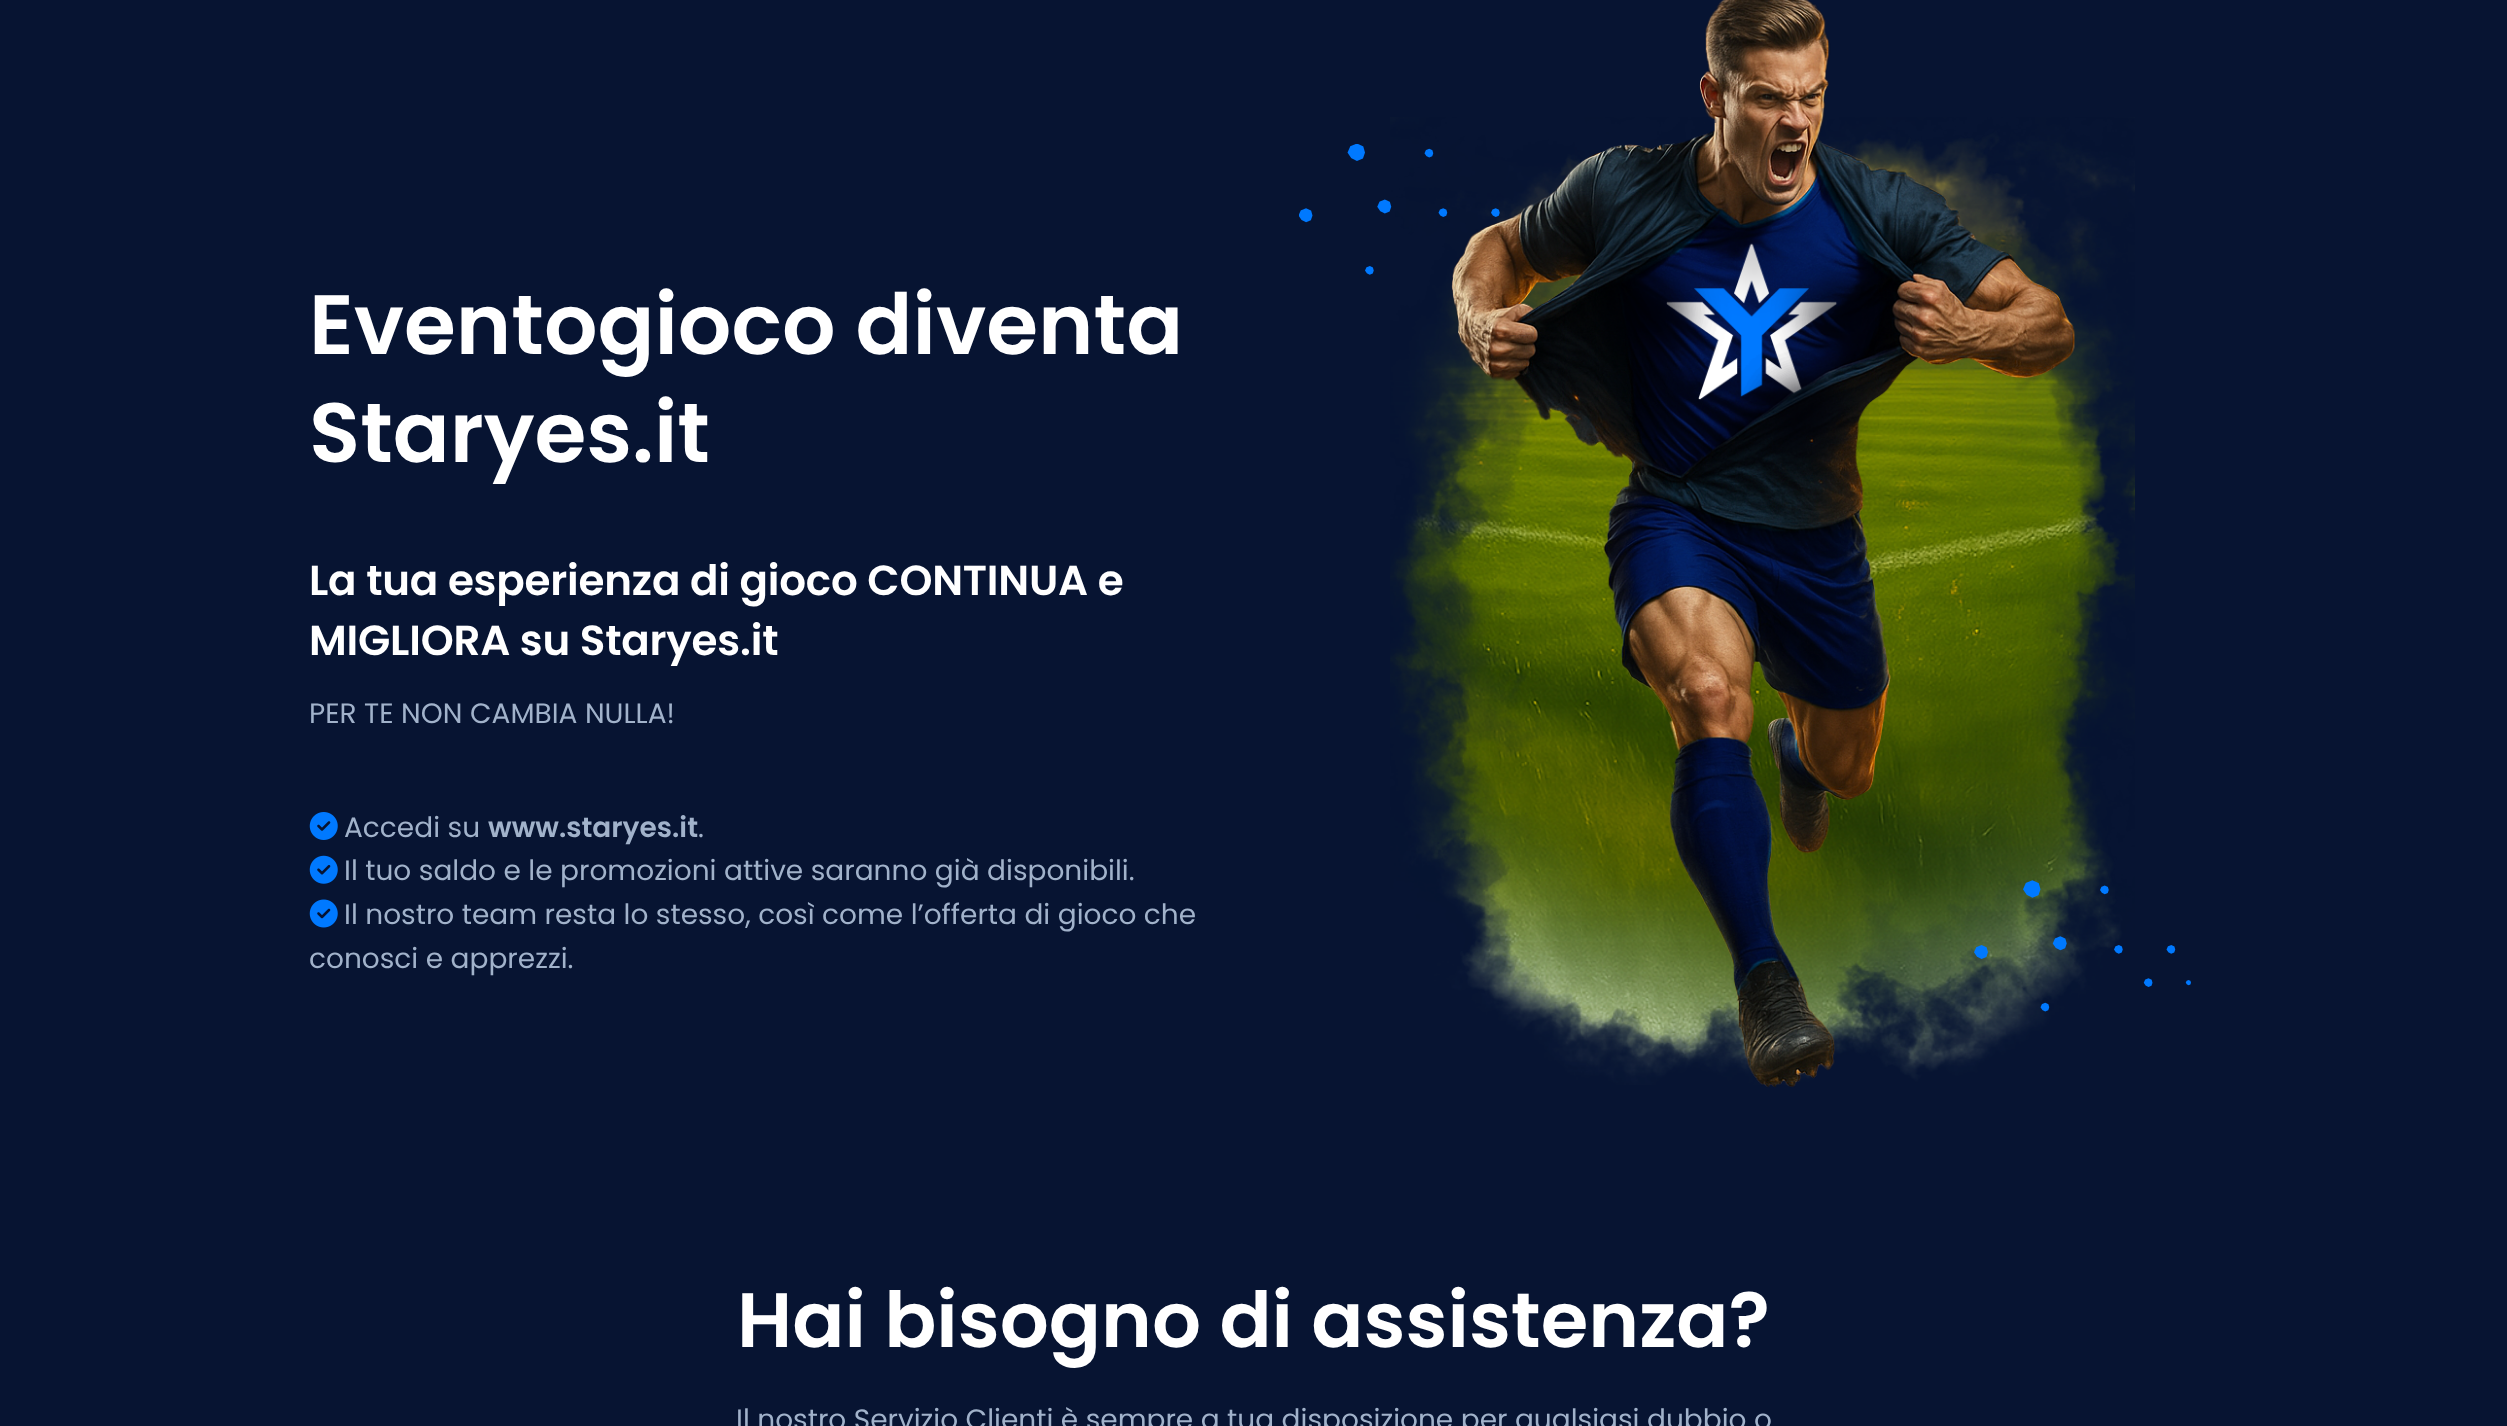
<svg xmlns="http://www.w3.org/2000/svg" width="2507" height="1426">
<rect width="100%" height="100%" fill="#071432"/>
<text x="309" y="354" style="font-family:Poppins;font-size:84px;font-weight:600;fill:#fff">Eventogioco diventa</text>
<text x="309" y="462" style="font-family:Poppins;font-size:84px;font-weight:600;fill:#fff">Staryes.it</text>
<text x="309" y="595" style="font-family:Poppins;font-size:42px;font-weight:600;letter-spacing:-0.2px;fill:#fff">La tua esperienza di gioco CONTINUA e</text>
<text x="309" y="655" style="font-family:Poppins;font-size:42px;font-weight:600;letter-spacing:-0.2px;fill:#fff">MIGLIORA su Staryes.it</text>
<text x="309" y="723" style="font-family:Poppins;font-size:28px;fill:#a1b2ca">PER TE NON CAMBIA NULLA!</text>
<image x="309" y="812" width="29" height="28" href="media/1.png"/>
<text x="344" y="837" style="font-family:Poppins;font-size:28px;fill:#a1b2ca">Accedi su</text>
<text x="488" y="837" style="font-family:Poppins;font-size:28px;font-weight:600;fill:#a1b2ca">www.staryes.it</text>
<text x="698" y="837" style="font-family:Poppins;font-size:28px;fill:#a1b2ca">.</text>
<image x="309" y="855" width="29" height="29" href="media/2.png"/>
<text x="344" y="880" style="font-family:Poppins;font-size:28px;fill:#a1b2ca">Il tuo saldo e le promozioni attive saranno già disponibili.</text>
<image x="309" y="899" width="29" height="29" href="media/3.png"/>
<text x="344" y="924" style="font-family:Poppins;font-size:28px;fill:#a1b2ca">Il nostro team resta lo stesso, così come l’offerta di gioco che</text>
<text x="309" y="968" style="font-family:Poppins;font-size:28px;fill:#a1b2ca">conosci e apprezzi.</text>
<image x="1390" y="117" width="745" height="968" href="media/4.png"/>
<image x="1299" y="144" width="201" height="131" href="media/5.png"/>
<image x="1974" y="880" width="217" height="132" href="media/7.png"/>
<image x="1451" y="0" width="624" height="1088" href="media/6.png"/>
<text x="737" y="1347" style="font-family:Poppins;font-size:77px;font-weight:600;fill:#fff">Hai bisogno di assistenza?</text>
<text x="736" y="1429" style="font-family:Poppins;font-size:28px;fill:#a1b2ca">Il nostro Servizio Clienti è sempre a tua disposizione per qualsiasi dubbio o</text>
</svg>
